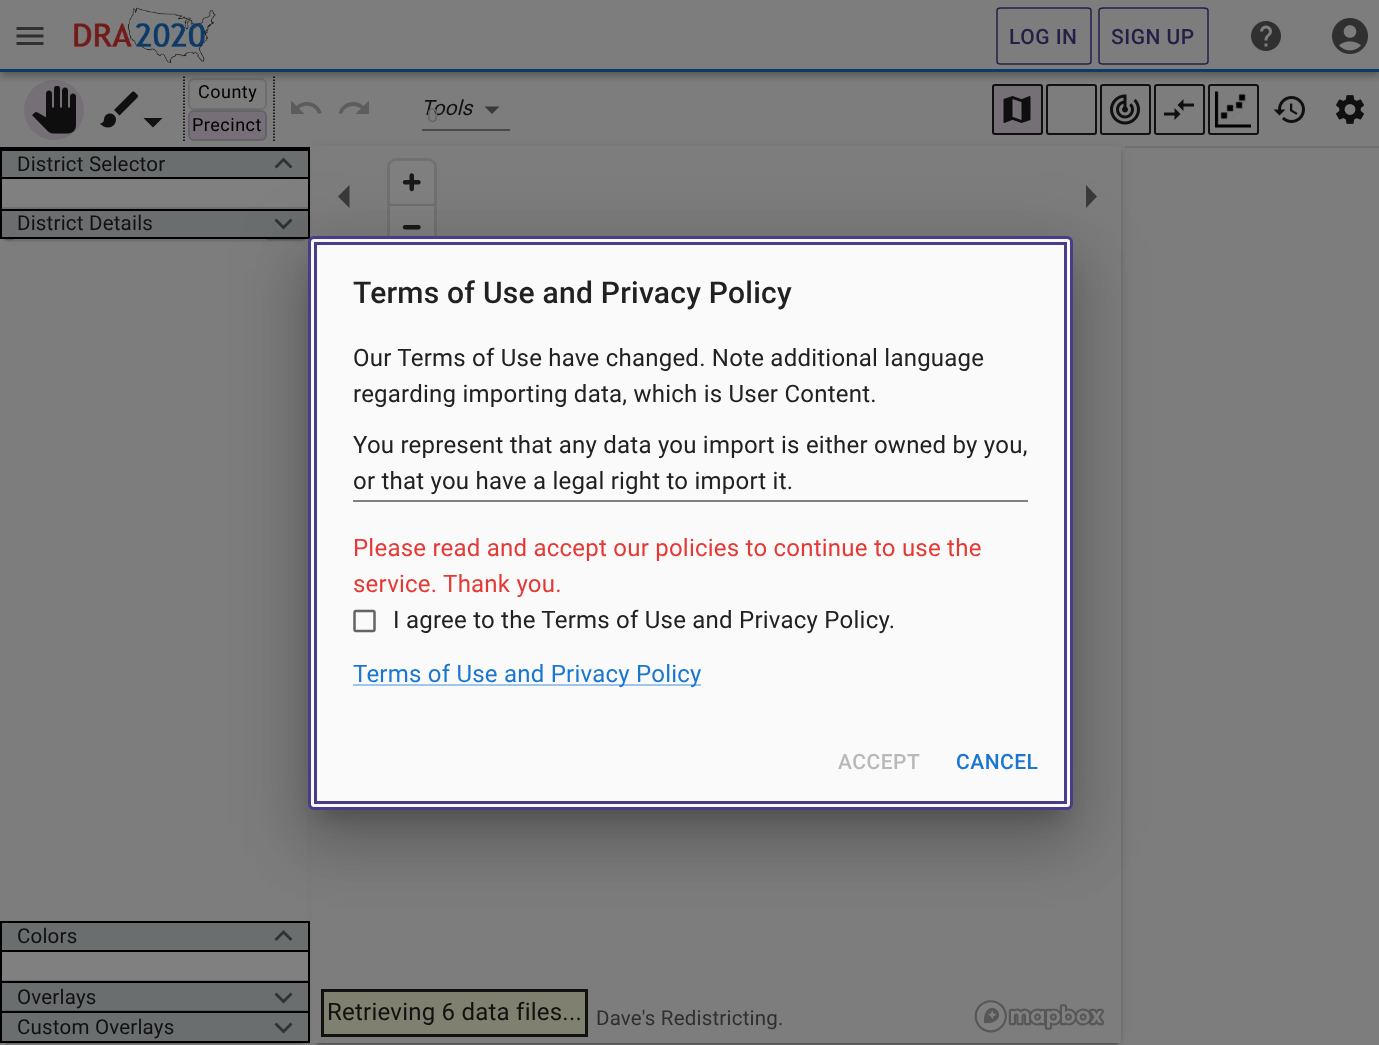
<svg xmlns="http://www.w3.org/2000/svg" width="1379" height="1045">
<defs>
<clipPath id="clip1"><rect x="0" y="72" width="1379" height="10"/></clipPath>
<clipPath id="clip2"><rect x="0" y="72" width="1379" height="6"/></clipPath>
<clipPath id="clip3"><rect x="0" y="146" width="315" height="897"/></clipPath>
</defs>
<rect width="100%" height="100%" fill="#7d7d7d"/>
<circle cx="54" cy="110" r="30" fill="#766f78"/>
<image x="32" y="86" width="44" height="48" href="media/5.png"/>
<path d="M274 76.5v64.5" fill="none" stroke="#000" stroke-width="1.5" stroke-dasharray="1.5 1.5"/>
<path d="M184 76.5v64.5" fill="none" stroke="#000" stroke-width="1.5" stroke-dasharray="1.5 1.5"/>
<rect x="189" y="79" width="77" height="30" rx="5" fill="none" stroke="#6e6e6e" stroke-width="2"/>
<rect x="992" y="84" width="51" height="51" rx="3" fill="#766f78"/>
<rect x="993" y="85" width="49" height="49" rx="2" fill="none" stroke="#000000de" stroke-width="2"/>
<rect x="1047" y="85" width="49" height="49" rx="2" fill="none" stroke="#111" stroke-width="2"/>
<rect x="1101" y="85" width="49" height="49" rx="2" fill="none" stroke="#111" stroke-width="2"/>
<rect x="1155" y="85" width="49" height="49" rx="2" fill="none" stroke="#111" stroke-width="2"/>
<rect x="1209" y="85" width="49" height="49" rx="2" fill="none" stroke="#111" stroke-width="2"/>
<g clip-path="url(#clip1)">
<rect y="6" width="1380" height="72" fill="#00000024" filter="blur(4px)"/>
</g>
<g clip-path="url(#clip2)">
<rect x="2" y="5" width="1377" height="69" fill="#00000033" filter="blur(3px)"/>
</g>
<rect y="69" width="1379" height="3" fill="#0d3b69"/>
<image x="16" y="27" width="28" height="18" href="media/1.png"/>
<image x="74" y="7" width="142" height="56" href="media/2.png"/>
<path d="M1001 8h86c2.5 0 4 1 4 2.5v51c0 1.5-1.5 2.5-4 2.5h-86c-2.5 0-4-1-4-2.5v-51c0-1.5 1.5-2.5 4-2.5z" fill="none" stroke="#241f46" stroke-width="1.5"/>
<text x="1009" y="44" style="font-family:Roboto;font-size:21px;font-weight:500;letter-spacing:0.5px;fill:#241f46">LOG IN</text>
<path d="M1103.5 8h100c2.5 0 4.5 1 4.5 2.5v51c0 1.5-2 2.5-4.5 2.5h-100c-2.5 0-4.5-1-4.5-2.5v-51c0-1.5 2-2.5 4.5-2.5z" fill="none" stroke="#241f46" stroke-width="1.5"/>
<text x="1111" y="44" style="font-family:Roboto;font-size:21px;font-weight:500;letter-spacing:0.5px;fill:#241f46">SIGN UP</text>
<image x="1251" y="21" width="30" height="30" href="media/3.png"/>
<image x="1332" y="18" width="36" height="36" href="media/4.png"/>
<image x="100" y="91" width="38" height="37" href="media/6.png"/>
<path d="M143.5 118l9.5 9.5l9.5-9.5z" fill="#111"/>
<text x="198" y="98" style="font-family:Roboto;font-size:18px;letter-spacing:0.5px;fill:#000">County</text>
<rect x="188" y="110" width="79" height="31" rx="6" fill="#766f78"/>
<rect x="189" y="111" width="77" height="29" rx="5" fill="none" stroke="#0000001f" stroke-width="2"/>
<text x="192" y="131" style="font-family:Roboto;font-size:18px;letter-spacing:0.5px;fill:#000">Precinct</text>
<image x="291" y="100" width="31" height="14" href="media/7.png"/>
<path d="M363.5 106c-8-7.5-21.5-4-25 7l3.5 1c2.5-8 12.5-10.5 19-5.5l-5.5 5.5h13.5v-13.5z" fill="#5d5d5d"/>
<text x="421" y="115" style="font-family:Roboto;font-size:21px;font-style:italic;fill:#111">Tools</text>
<path d="M484.5 106.5l7.5 7.5l7.5-7.5z" fill="#3a3a3a"/>
<text x="427" y="122" style="font-family:Liberation Sans;font-size:20px;fill:#666">0</text>
<rect x="422" y="129" width="88" height="2" fill="#494949"/>
<image x="1003" y="96" width="28" height="27" href="media/8.png"/>
<image x="1110" y="94" width="30" height="31" href="media/9.png"/>
<image x="1164" y="99" width="30" height="21" href="media/10.png"/>
<image x="1215" y="91" width="36" height="37" href="media/11.png"/>
<image x="1273" y="96" width="32" height="27" href="media/12.png"/>
<image x="1336" y="95" width="28" height="29" href="media/13.png"/>
<rect x="315" y="147" width="806" height="897" rx="6" fill="#0000001f" filter="blur(4px)"/>
<rect x="315" y="149" width="806" height="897" rx="6" fill="#00000024" filter="blur(1.5px)"/>
<rect x="1125" y="146" width="254" height="2" fill="#707070"/>
<rect x="318" y="153" width="800" height="891" rx="3" fill="#00000033" filter="blur(1px)"/>
<rect x="311" y="147" width="4" height="896" fill="#7d7d7d"/>
<rect y="147" width="309" height="2" fill="#000"/>
<rect x="308" y="147" width="2" height="92" fill="#000"/>
<rect y="147" width="2" height="92" fill="#000"/>
<rect x="2" y="150" width="306" height="60" rx="6" fill="#0000001f" filter="blur(2px)"/>
<rect x="2" y="150" width="306" height="60" rx="6" fill="#00000024" filter="blur(1px)"/>
<rect x="2" y="179" width="306" height="30" fill="#808080"/>
<rect x="2" y="151" width="306" height="26" fill="#6b6e6e"/>
<rect x="2" y="149" width="306" height="2" fill="#000"/>
<rect x="2" y="177" width="306" height="2" fill="#000"/>
<text x="17" y="171" style="font-family:Roboto;font-size:20.5px;letter-spacing:0.2px;fill:#111">District Selector</text>
<path d="M276.5 168.5l7-7l7 7l2-2l-9-9l-9 9z" fill="#313333"/>
<rect x="2" y="210" width="306" height="30" rx="6" fill="#0000001f" filter="blur(2px)"/>
<rect x="2" y="210" width="306" height="30" rx="6" fill="#00000024" filter="blur(1px)"/>
<rect x="3" y="213" width="303" height="27" rx="5" fill="#00000033" filter="blur(1px)"/>
<rect x="2" y="207" width="306" height="2" fill="#0000001f"/>
<rect x="2" y="211" width="306" height="26" fill="#6b6e6e"/>
<rect x="2" y="209" width="306" height="2" fill="#000"/>
<rect x="2" y="237" width="306" height="2" fill="#000"/>
<text x="17" y="230" style="font-family:Roboto;font-size:20.5px;letter-spacing:0.2px;fill:#111">District Details</text>
<rect x="14" y="239" width="253" height="2" fill="#707070"/>
<path d="M290.5 218.5l-7 7l-7-7l-2 2l9 9l9-9z" fill="#313333"/>
<rect x="308" y="921" width="2" height="122" fill="#000"/>
<rect y="1041" width="309" height="2" fill="#000"/>
<rect y="921" width="2" height="122" fill="#000"/>
<rect x="2" y="923" width="306" height="60" rx="6" fill="#0000001f" filter="blur(2px)"/>
<rect x="2" y="923" width="306" height="60" rx="6" fill="#00000024" filter="blur(1px)"/>
<rect x="2" y="952" width="306" height="29" fill="#808080"/>
<rect x="2" y="923" width="306" height="27" fill="#6b6e6e"/>
<rect x="2" y="921" width="306" height="2" fill="#000"/>
<rect x="2" y="950" width="306" height="2" fill="#000"/>
<text x="17" y="943" style="font-family:Roboto;font-size:20.5px;letter-spacing:0.2px;fill:#111">Colors</text>
<path d="M276.5 941l7-7l7 7l2-2l-9-9l-9 9z" fill="#313333"/>
<rect x="2" y="983" width="306" height="30" fill="#0000001f" filter="blur(2px)"/>
<rect x="2" y="983" width="306" height="30" fill="#00000024" filter="blur(1px)"/>
<rect x="2" y="980" width="306" height="1" fill="#0000001f"/>
<rect x="2" y="983" width="306" height="28" fill="#6b6e6e"/>
<rect x="2" y="981" width="306" height="2" fill="#000"/>
<text x="17" y="1004" style="font-family:Roboto;font-size:20.5px;letter-spacing:0.2px;fill:#111">Overlays</text>
<path d="M290.5 992.5l-7 7l-7-7l-2 2l9 9l9-9z" fill="#313333"/>
<g clip-path="url(#clip3)">
<rect x="2" y="1013" width="306" height="30" rx="6" fill="#0000001f" filter="blur(2px)"/>
</g>
<rect x="2" y="1013" width="306" height="30" rx="6" fill="#00000024" filter="blur(1px)"/>
<rect x="3" y="1016" width="303" height="27" rx="5" fill="#00000033" filter="blur(1px)"/>
<rect x="2" y="1010" width="306" height="1" fill="#0000001f"/>
<rect x="2" y="1013" width="306" height="28" fill="#6b6e6e"/>
<rect x="2" y="1011" width="306" height="2" fill="#000"/>
<text x="17" y="1034" style="font-family:Roboto;font-size:20.5px;letter-spacing:0.2px;fill:#111">Custom Overlays</text>
<path d="M290.5 1022.5l-7 7l-7-7l-2 2l9 9l9-9z" fill="#313333"/>
<rect x="315" y="146" width="806" height="897" fill="#7d7d7d"/>
<rect x="388.5" y="159.5" width="47" height="90" rx="7.5" fill="none" stroke="#717171" stroke-width="3"/>
<rect x="390" y="161" width="44" height="87" rx="6" fill="#808080"/>
<image x="402" y="173" width="19" height="19" href="media/14.png"/>
<rect x="390" y="204" width="44" height="2" fill="#6f6f6f"/>
<image x="402" y="225" width="19" height="5" href="media/15.png"/>
<image x="974" y="1000" width="130" height="33" href="media/16.png"/>
<path d="M349.5 185l-11.5 11.5l11.5 11.5z" fill="#3a3a3a"/>
<path d="M1086 208l11-11.5l-11-11.5z" fill="#3a3a3a"/>
<rect x="322.5" y="990.5" width="264" height="45" fill="#808070" stroke="#11110f" stroke-width="3"/>
<text x="327" y="1020" style="font-family:Roboto;font-size:24px;letter-spacing:0.23px;fill:#111">Retrieving 6 data files...</text>
<text x="596" y="1025" style="font-family:Roboto;font-size:20.5px;letter-spacing:0.2px;fill:#2f2f2f">Dave's Redistricting.</text>
<rect x="296" y="237" width="789" height="599" rx="18" fill="#0000001f" filter="blur(34.5px)"/>
<rect x="303" y="267" width="774" height="584" rx="11" fill="#00000024" filter="blur(28.5px)"/>
<rect x="318" y="263" width="744" height="553" fill="#00000033" filter="blur(11px)"/>
<rect x="309.5" y="237.5" width="762" height="571" rx="4.5" fill="#fafafa" stroke="#483d8b" stroke-width="3"/>
<rect x="315.5" y="243.5" width="750" height="559" fill="none" stroke="#483d8b" stroke-width="3"/>
<text x="353" y="303" style="font-family:Roboto;font-size:30px;font-weight:500;letter-spacing:0.25px;fill:#212121">Terms of Use and Privacy Policy</text>
<text x="353" y="366" style="font-family:Roboto;font-size:24px;letter-spacing:0.23px;fill:#212121">Our Terms of Use have changed. Note additional language</text>
<text x="353" y="402" style="font-family:Roboto;font-size:24px;letter-spacing:0.23px;fill:#212121">regarding importing data, which is User Content.</text>
<rect x="353" y="500" width="675" height="2" fill="#808080"/>
<text x="353" y="453" style="font-family:Roboto;font-size:24px;letter-spacing:0.23px;fill:#212121">You represent that any data you import is either owned by you,</text>
<text x="353" y="489" style="font-family:Roboto;font-size:24px;letter-spacing:0.23px;fill:#212121">or that you have a legal right to import it.</text>
<text x="353" y="556" style="font-family:Roboto;font-size:24px;letter-spacing:0.23px;fill:#e53935">Please read and accept our policies to continue to use the</text>
<text x="353" y="592" style="font-family:Roboto;font-size:24px;letter-spacing:0.23px;fill:#e53935">service. Thank you.</text>
<image x="353" y="609" width="23" height="24" href="media/17.png"/>
<text x="393" y="628" style="font-family:Roboto;font-size:24px;letter-spacing:0.23px;fill:#212121">I agree to the Terms of Use and Privacy Policy.</text>
<rect x="353" y="684" width="348" height="2" fill="#a0c5ea"/>
<text x="353" y="682" style="font-family:Roboto;font-size:24px;letter-spacing:0.23px;fill:#1976d2">Terms of Use and Privacy Policy</text>
<text x="838" y="769" style="font-family:Roboto;font-size:21px;font-weight:500;letter-spacing:0.5px;fill:#b9b9b9">ACCEPT</text>
<text x="956" y="769" style="font-family:Roboto;font-size:21px;font-weight:500;letter-spacing:0.5px;fill:#1976d2">CANCEL</text>
</svg>
